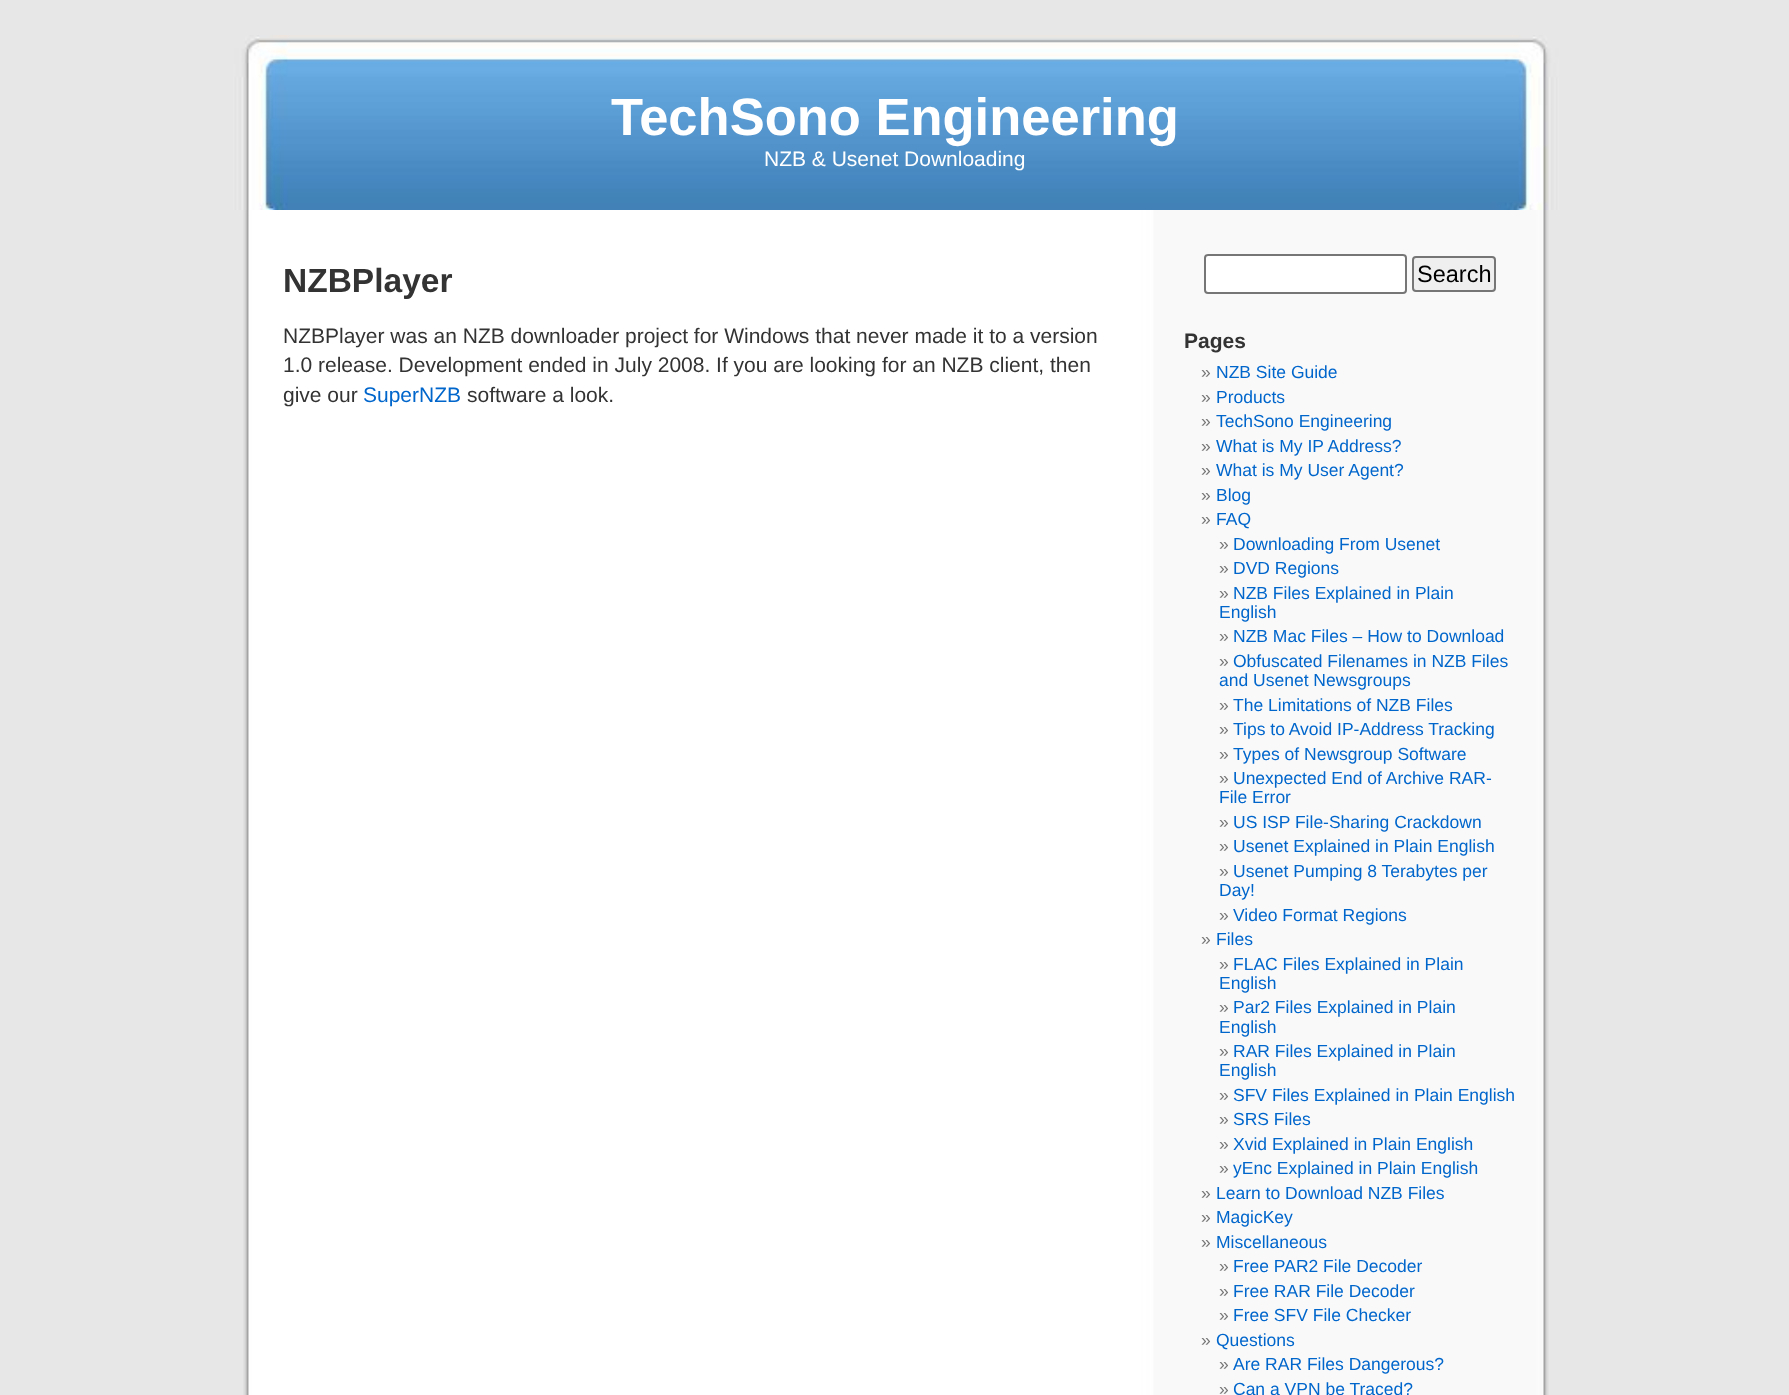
<svg xmlns="http://www.w3.org/2000/svg" width="1789" height="1395">
<rect width="100%" height="100%" fill="#e7e7e7"/>
<image x="243" y="210" width="1306" height="1185" href="media/1.png"/>
<image x="233" y="35" width="1326" height="175" href="media/2.png"/>
<text x="611" y="135" style="font-family:Liberation Sans;font-size:52.5px;font-weight:bold;fill:#fff">TechSono Engineering</text>
<text x="764" y="166" style="font-family:Liberation Sans;font-size:21px;fill:#fff">NZB &amp; Usenet Downloading</text>
<text x="283" y="292" style="font-family:Liberation Sans;font-size:33.5px;font-weight:bold;fill:#333">NZBPlayer</text>
<text x="283" y="343" style="font-family:Liberation Sans;font-size:21px;fill:#333">NZBPlayer was an NZB downloader project for Windows that never made it to a version</text>
<text x="283" y="372" style="font-family:Liberation Sans;font-size:21px;fill:#333">1.0 release. Development ended in July 2008. If you are looking for an NZB client, then</text>
<text x="283" y="402" style="font-family:Liberation Sans;font-size:21px;fill:#333">give our</text>
<text x="363" y="402" style="font-family:Liberation Sans;font-size:21px;fill:#06c">SuperNZB</text>
<text x="467" y="402" style="font-family:Liberation Sans;font-size:21px;fill:#333">software a look.</text>
<rect x="1205" y="255" width="201" height="38" rx="3" fill="#fff" stroke="#767676" stroke-width="2"/>
<rect x="1413" y="257" width="82" height="34" rx="3" fill="#efefef" stroke="#767676" stroke-width="2"/>
<text x="1417" y="282" style="font-family:Liberation Sans;font-size:23.5px;fill:#000">Search</text>
<text x="1184" y="348" style="font-family:Liberation Sans;font-size:21px;font-weight:bold;fill:#333">Pages</text>
<text x="1201" y="378" style="font-family:Liberation Sans;font-size:17.5px;fill:#777">»</text>
<text x="1216" y="378" style="font-family:Liberation Sans;font-size:17.5px;fill:#06c">NZB Site Guide</text>
<text x="1201" y="403" style="font-family:Liberation Sans;font-size:17.5px;fill:#777">»</text>
<text x="1216" y="403" style="font-family:Liberation Sans;font-size:17.5px;fill:#06c">Products</text>
<text x="1201" y="427" style="font-family:Liberation Sans;font-size:17.5px;fill:#777">»</text>
<text x="1216" y="427" style="font-family:Liberation Sans;font-size:17.5px;fill:#06c">TechSono Engineering</text>
<text x="1201" y="452" style="font-family:Liberation Sans;font-size:17.5px;fill:#777">»</text>
<text x="1216" y="452" style="font-family:Liberation Sans;font-size:17.5px;fill:#06c">What is My IP Address?</text>
<text x="1201" y="476" style="font-family:Liberation Sans;font-size:17.5px;fill:#777">»</text>
<text x="1216" y="476" style="font-family:Liberation Sans;font-size:17.5px;fill:#06c">What is My User Agent?</text>
<text x="1201" y="501" style="font-family:Liberation Sans;font-size:17.5px;fill:#777">»</text>
<text x="1216" y="501" style="font-family:Liberation Sans;font-size:17.5px;fill:#06c">Blog</text>
<text x="1201" y="525" style="font-family:Liberation Sans;font-size:17.5px;fill:#777">»</text>
<text x="1216" y="525" style="font-family:Liberation Sans;font-size:17.5px;fill:#06c">FAQ</text>
<text x="1219" y="550" style="font-family:Liberation Sans;font-size:17.5px;fill:#777">»</text>
<text x="1233" y="550" style="font-family:Liberation Sans;font-size:17.5px;fill:#06c">Downloading From Usenet</text>
<text x="1219" y="574" style="font-family:Liberation Sans;font-size:17.5px;fill:#777">»</text>
<text x="1233" y="574" style="font-family:Liberation Sans;font-size:17.5px;fill:#06c">DVD Regions</text>
<text x="1219" y="599" style="font-family:Liberation Sans;font-size:17.5px;fill:#777">»</text>
<text x="1233" y="599" style="font-family:Liberation Sans;font-size:17.5px;fill:#06c">NZB Files Explained in Plain</text>
<text x="1219" y="618" style="font-family:Liberation Sans;font-size:17.5px;fill:#06c">English</text>
<text x="1219" y="642" style="font-family:Liberation Sans;font-size:17.5px;fill:#777">»</text>
<text x="1233" y="642" style="font-family:Liberation Sans;font-size:17.5px;fill:#06c">NZB Mac Files – How to Download</text>
<text x="1219" y="667" style="font-family:Liberation Sans;font-size:17.5px;fill:#777">»</text>
<text x="1233" y="667" style="font-family:Liberation Sans;font-size:17.5px;fill:#06c">Obfuscated Filenames in NZB Files</text>
<text x="1219" y="686" style="font-family:Liberation Sans;font-size:17.5px;fill:#06c">and Usenet Newsgroups</text>
<text x="1219" y="711" style="font-family:Liberation Sans;font-size:17.5px;fill:#777">»</text>
<text x="1233" y="711" style="font-family:Liberation Sans;font-size:17.5px;fill:#06c">The Limitations of NZB Files</text>
<text x="1219" y="735" style="font-family:Liberation Sans;font-size:17.5px;fill:#777">»</text>
<text x="1233" y="735" style="font-family:Liberation Sans;font-size:17.5px;fill:#06c">Tips to Avoid IP-Address Tracking</text>
<text x="1219" y="760" style="font-family:Liberation Sans;font-size:17.5px;fill:#777">»</text>
<text x="1233" y="760" style="font-family:Liberation Sans;font-size:17.5px;fill:#06c">Types of Newsgroup Software</text>
<text x="1219" y="784" style="font-family:Liberation Sans;font-size:17.5px;fill:#777">»</text>
<text x="1233" y="784" style="font-family:Liberation Sans;font-size:17.5px;fill:#06c">Unexpected End of Archive RAR-</text>
<text x="1219" y="803" style="font-family:Liberation Sans;font-size:17.5px;fill:#06c">File Error</text>
<text x="1219" y="828" style="font-family:Liberation Sans;font-size:17.5px;fill:#777">»</text>
<text x="1233" y="828" style="font-family:Liberation Sans;font-size:17.5px;fill:#06c">US ISP File-Sharing Crackdown</text>
<text x="1219" y="852" style="font-family:Liberation Sans;font-size:17.5px;fill:#777">»</text>
<text x="1233" y="852" style="font-family:Liberation Sans;font-size:17.5px;fill:#06c">Usenet Explained in Plain English</text>
<text x="1219" y="877" style="font-family:Liberation Sans;font-size:17.5px;fill:#777">»</text>
<text x="1233" y="877" style="font-family:Liberation Sans;font-size:17.5px;fill:#06c">Usenet Pumping 8 Terabytes per</text>
<text x="1219" y="896" style="font-family:Liberation Sans;font-size:17.5px;fill:#06c">Day!</text>
<text x="1219" y="921" style="font-family:Liberation Sans;font-size:17.5px;fill:#777">»</text>
<text x="1233" y="921" style="font-family:Liberation Sans;font-size:17.5px;fill:#06c">Video Format Regions</text>
<text x="1201" y="945" style="font-family:Liberation Sans;font-size:17.5px;fill:#777">»</text>
<text x="1216" y="945" style="font-family:Liberation Sans;font-size:17.5px;fill:#06c">Files</text>
<text x="1219" y="970" style="font-family:Liberation Sans;font-size:17.5px;fill:#777">»</text>
<text x="1233" y="970" style="font-family:Liberation Sans;font-size:17.5px;fill:#06c">FLAC Files Explained in Plain</text>
<text x="1219" y="989" style="font-family:Liberation Sans;font-size:17.5px;fill:#06c">English</text>
<text x="1219" y="1013" style="font-family:Liberation Sans;font-size:17.5px;fill:#777">»</text>
<text x="1233" y="1013" style="font-family:Liberation Sans;font-size:17.5px;fill:#06c">Par2 Files Explained in Plain</text>
<text x="1219" y="1033" style="font-family:Liberation Sans;font-size:17.5px;fill:#06c">English</text>
<text x="1219" y="1057" style="font-family:Liberation Sans;font-size:17.5px;fill:#777">»</text>
<text x="1233" y="1057" style="font-family:Liberation Sans;font-size:17.5px;fill:#06c">RAR Files Explained in Plain</text>
<text x="1219" y="1076" style="font-family:Liberation Sans;font-size:17.5px;fill:#06c">English</text>
<text x="1219" y="1101" style="font-family:Liberation Sans;font-size:17.5px;fill:#777">»</text>
<text x="1233" y="1101" style="font-family:Liberation Sans;font-size:17.5px;fill:#06c">SFV Files Explained in Plain English</text>
<text x="1219" y="1125" style="font-family:Liberation Sans;font-size:17.5px;fill:#777">»</text>
<text x="1233" y="1125" style="font-family:Liberation Sans;font-size:17.5px;fill:#06c">SRS Files</text>
<text x="1219" y="1150" style="font-family:Liberation Sans;font-size:17.5px;fill:#777">»</text>
<text x="1233" y="1150" style="font-family:Liberation Sans;font-size:17.5px;fill:#06c">Xvid Explained in Plain English</text>
<text x="1219" y="1174" style="font-family:Liberation Sans;font-size:17.5px;fill:#777">»</text>
<text x="1233" y="1174" style="font-family:Liberation Sans;font-size:17.5px;fill:#06c">yEnc Explained in Plain English</text>
<text x="1201" y="1199" style="font-family:Liberation Sans;font-size:17.5px;fill:#777">»</text>
<text x="1216" y="1199" style="font-family:Liberation Sans;font-size:17.5px;fill:#06c">Learn to Download NZB Files</text>
<text x="1201" y="1223" style="font-family:Liberation Sans;font-size:17.5px;fill:#777">»</text>
<text x="1216" y="1223" style="font-family:Liberation Sans;font-size:17.5px;fill:#06c">MagicKey</text>
<text x="1201" y="1248" style="font-family:Liberation Sans;font-size:17.5px;fill:#777">»</text>
<text x="1216" y="1248" style="font-family:Liberation Sans;font-size:17.5px;fill:#06c">Miscellaneous</text>
<text x="1219" y="1272" style="font-family:Liberation Sans;font-size:17.5px;fill:#777">»</text>
<text x="1233" y="1272" style="font-family:Liberation Sans;font-size:17.5px;fill:#06c">Free PAR2 File Decoder</text>
<text x="1219" y="1297" style="font-family:Liberation Sans;font-size:17.5px;fill:#777">»</text>
<text x="1233" y="1297" style="font-family:Liberation Sans;font-size:17.5px;fill:#06c">Free RAR File Decoder</text>
<text x="1219" y="1321" style="font-family:Liberation Sans;font-size:17.5px;fill:#777">»</text>
<text x="1233" y="1321" style="font-family:Liberation Sans;font-size:17.5px;fill:#06c">Free SFV File Checker</text>
<text x="1201" y="1346" style="font-family:Liberation Sans;font-size:17.5px;fill:#777">»</text>
<text x="1216" y="1346" style="font-family:Liberation Sans;font-size:17.5px;fill:#06c">Questions</text>
<text x="1219" y="1370" style="font-family:Liberation Sans;font-size:17.5px;fill:#777">»</text>
<text x="1233" y="1370" style="font-family:Liberation Sans;font-size:17.5px;fill:#06c">Are RAR Files Dangerous?</text>
<text x="1219" y="1395" style="font-family:Liberation Sans;font-size:17.5px;fill:#777">»</text>
<text x="1233" y="1395" style="font-family:Liberation Sans;font-size:17.5px;fill:#06c">Can a VPN be Traced?</text>
</svg>
